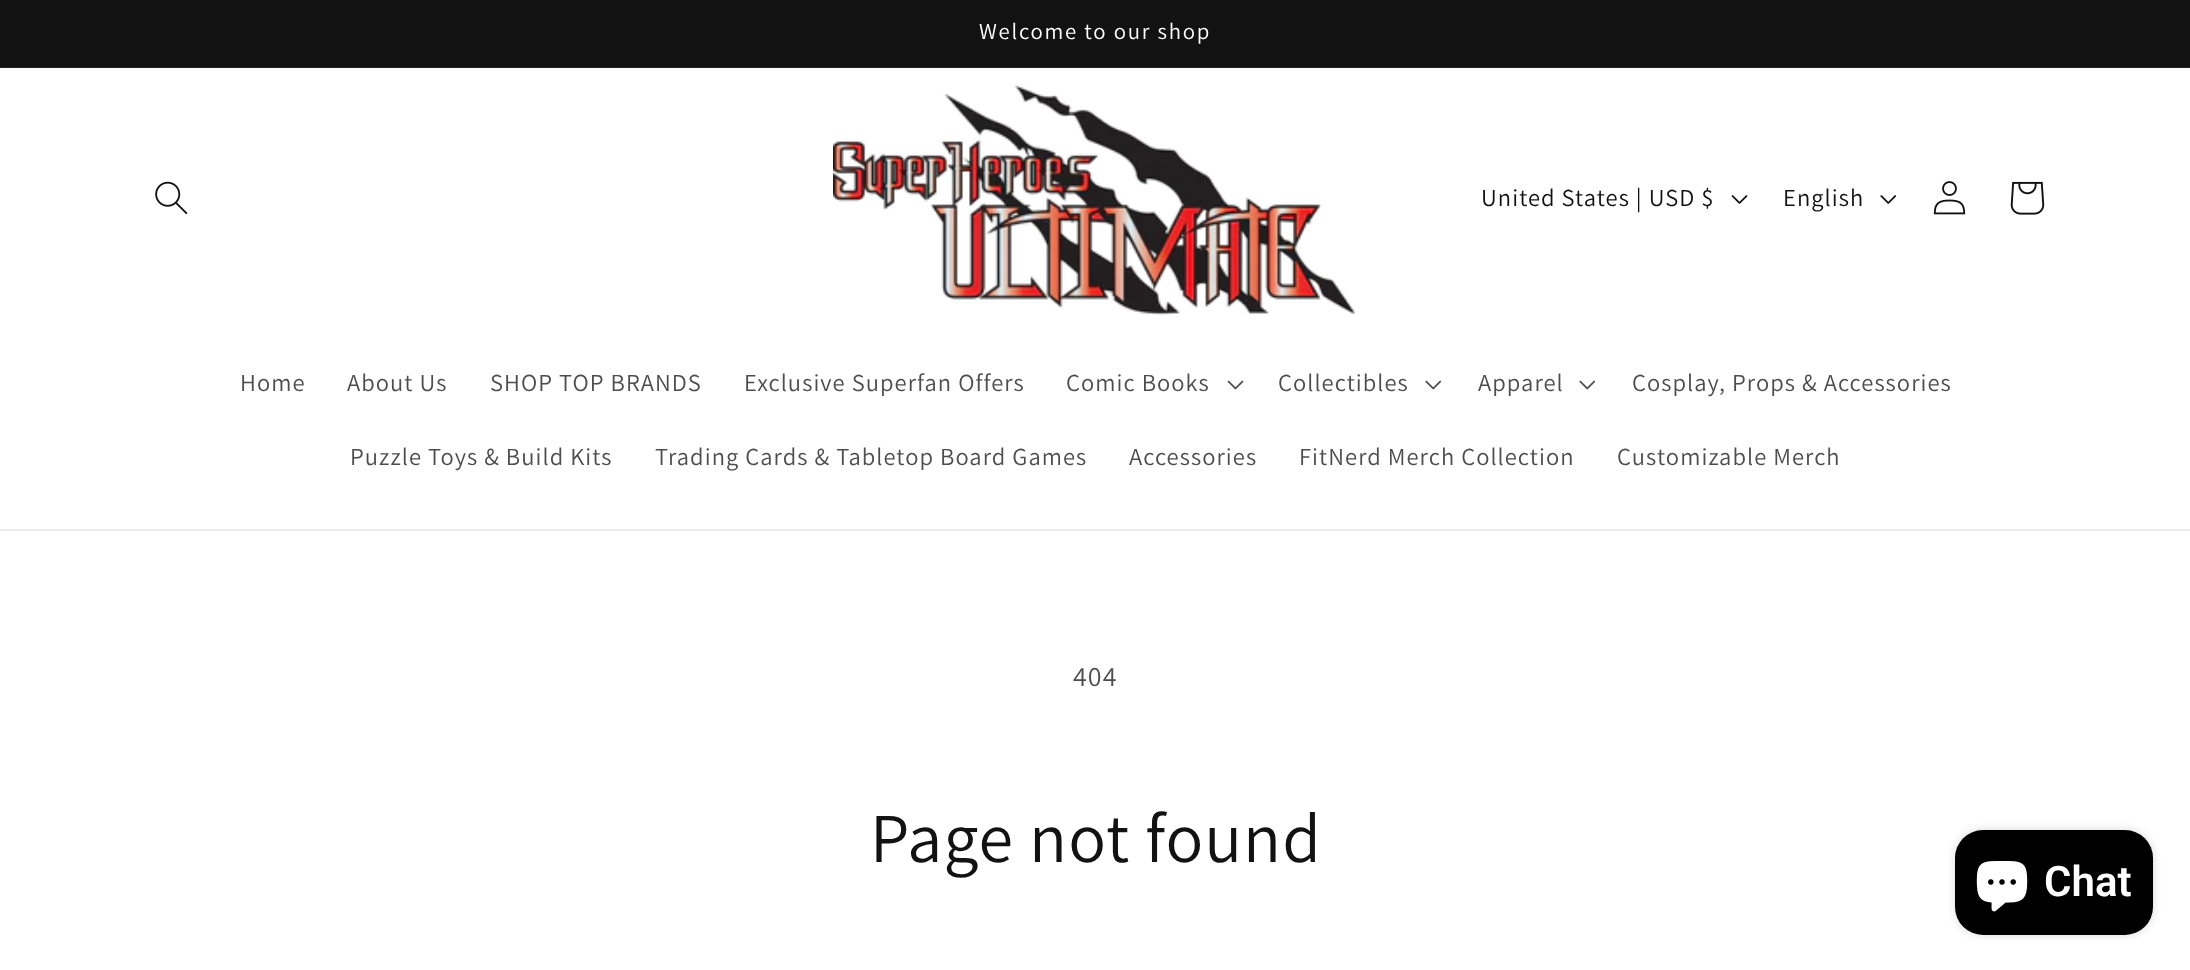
<svg xmlns="http://www.w3.org/2000/svg" width="2190" height="970">
<rect width="100%" height="100%" fill="#fff"/>
<rect width="2190" height="67" fill="#121212"/>
<rect y="67" width="2190" height="1" fill="#252525"/>
<text x="979" y="39" style="font-family:Assistant;font-size:22.75px;letter-spacing:1.75px;fill:#fff">Welcome to our shop</text>
<rect y="529" width="2190" height="2" fill="#ececec"/>
<image x="155" y="181" width="33" height="34" href="media/1.png"/>
<image x="833" y="84" width="523" height="231" href="media/2.png"/>
<text x="1481" y="206" style="font-family:Assistant;font-size:24.5px;letter-spacing:1.05px;fill:#121212">United States | USD $</text>
<image x="1731" y="195" width="17" height="9" href="media/3.png"/>
<text x="1783" y="206" style="font-family:Assistant;font-size:24.5px;letter-spacing:1.05px;fill:#121212">English</text>
<image x="1880" y="195" width="16" height="9" href="media/4.png"/>
<image x="1933" y="181" width="33" height="34" href="media/5.png"/>
<image x="2010" y="181" width="35" height="34" href="media/6.png"/>
<text x="240" y="391" style="font-family:Assistant;font-size:24.5px;letter-spacing:1.05px;fill:#4d4d4d">Home</text>
<text x="347" y="391" style="font-family:Assistant;font-size:24.5px;letter-spacing:1.05px;fill:#4d4d4d">About Us</text>
<text x="490" y="391" style="font-family:Assistant;font-size:24.5px;letter-spacing:1.05px;fill:#4d4d4d">SHOP TOP BRANDS</text>
<text x="744" y="391" style="font-family:Assistant;font-size:24.5px;letter-spacing:1.05px;fill:#4d4d4d">Exclusive Superfan Offers</text>
<text x="1066" y="391" style="font-family:Assistant;font-size:24.5px;letter-spacing:1.05px;fill:#4d4d4d">Comic Books</text>
<image x="1227" y="380" width="17" height="10" href="media/7.png"/>
<text x="1278" y="391" style="font-family:Assistant;font-size:24.5px;letter-spacing:1.05px;fill:#4d4d4d">Collectibles</text>
<image x="1425" y="380" width="17" height="10" href="media/8.png"/>
<text x="1478" y="391" style="font-family:Assistant;font-size:24.5px;letter-spacing:1.05px;fill:#4d4d4d">Apparel</text>
<image x="1579" y="380" width="17" height="10" href="media/8.png"/>
<text x="1632" y="391" style="font-family:Assistant;font-size:24.5px;letter-spacing:1.05px;fill:#4d4d4d">Cosplay, Props &amp; Accessories</text>
<text x="350" y="465" style="font-family:Assistant;font-size:24.5px;letter-spacing:1.05px;fill:#4d4d4d">Puzzle Toys &amp; Build Kits</text>
<text x="655" y="465" style="font-family:Assistant;font-size:24.5px;letter-spacing:1.05px;fill:#4d4d4d">Trading Cards &amp; Tabletop Board Games</text>
<text x="1129" y="465" style="font-family:Assistant;font-size:24.5px;letter-spacing:1.05px;fill:#4d4d4d">Accessories</text>
<text x="1299" y="465" style="font-family:Assistant;font-size:24.5px;letter-spacing:1.05px;fill:#4d4d4d">FitNerd Merch Collection</text>
<text x="1617" y="465" style="font-family:Assistant;font-size:24.5px;letter-spacing:1.05px;fill:#4d4d4d">Customizable Merch</text>
<text x="1073" y="686" style="font-family:Assistant;font-size:28px;letter-spacing:1.05px;fill:#4d4d4d">404</text>
<text x="870" y="862" style="font-family:Assistant;font-size:70px;letter-spacing:1.05px;fill:#121212">Page not found</text>
<rect x="1955" y="830" width="198" height="105" rx="28" fill="#00000026" filter="blur(4.5px)"/>
<rect x="1955" y="830" width="198" height="105" rx="28" fill="#000"/>
<image x="1976" y="861" width="52" height="51" href="media/9.png"/>
<text x="2044" y="896" style="font-family:Roboto;font-size:42px;font-weight:600;fill:#fff">Chat</text>
</svg>
